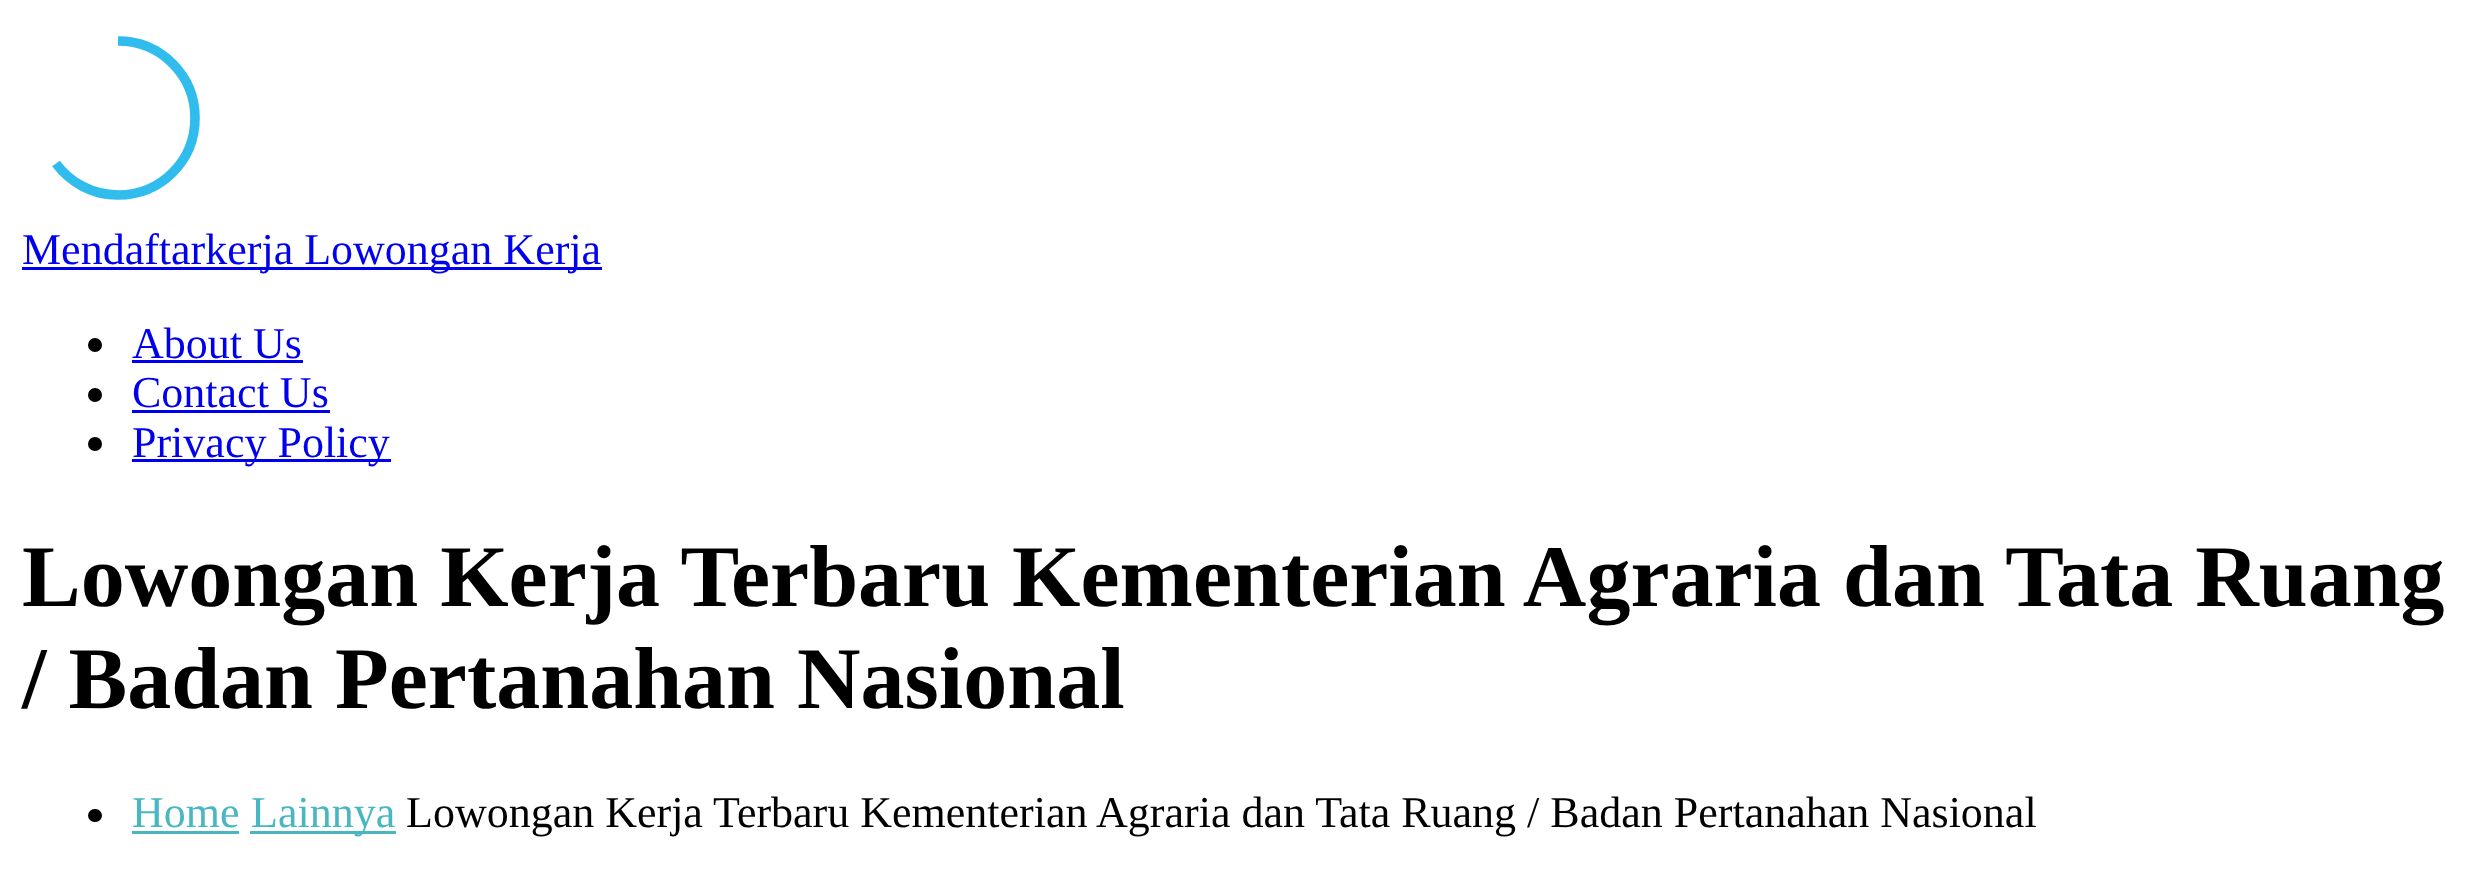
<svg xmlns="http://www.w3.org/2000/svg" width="2477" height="886">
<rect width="100%" height="100%" fill="#fff"/>
<path d="M118 41c43 0 77 34.5 77 77c0 43-34 77-77 77c-25.5 0-48-12.5-62-31.5" fill="none" stroke="#30bced" stroke-width="9.6"/>
<rect x="22" y="267" width="580" height="3" fill="#00e"/>
<text x="22" y="264" style="font-family:Liberation Serif;font-size:44px;fill:#00e">Mendaftarkerja Lowongan Kerja</text>
<circle cx="95" cy="345" r="7" fill="#000"/>
<text x="132" y="358" style="font-family:Liberation Serif;font-size:44px;fill:#00e">About Us</text>
<rect x="132" y="360" width="171" height="3" fill="#00e"/>
<circle cx="95" cy="395" r="7" fill="#000"/>
<text x="132" y="407" style="font-family:Liberation Serif;font-size:44px;fill:#00e">Contact Us</text>
<rect x="132" y="410" width="198" height="3" fill="#00e"/>
<circle cx="95" cy="444" r="7" fill="#000"/>
<rect x="132" y="459" width="259" height="3" fill="#00e"/>
<text x="132" y="457" style="font-family:Liberation Serif;font-size:44px;fill:#00e">Privacy Policy</text>
<text x="22" y="606" style="font-family:Liberation Serif;font-size:88px;font-weight:bold;fill:#000">Lowongan Kerja Terbaru Kementerian Agraria dan Tata Ruang</text>
<text x="22" y="708" style="font-family:Liberation Serif;font-size:88px;font-weight:bold;fill:#000">/ Badan Pertanahan Nasional</text>
<rect x="88" y="809" width="14" height="13" rx="6.5" fill="#000"/>
<text x="132" y="827" style="font-family:Liberation Serif;font-size:44px;fill:#49b6c3">Home</text>
<rect x="132" y="831" width="107" height="3" fill="#49b6c3"/>
<rect x="250" y="831" width="146" height="3" fill="#49b6c3"/>
<text x="251" y="827" style="font-family:Liberation Serif;font-size:44px;fill:#49b6c3">Lainnya</text>
<text x="406" y="827" style="font-family:Liberation Serif;font-size:44px;fill:#000">Lowongan Kerja Terbaru Kementerian Agraria dan Tata Ruang / Badan Pertanahan Nasional</text>
</svg>
